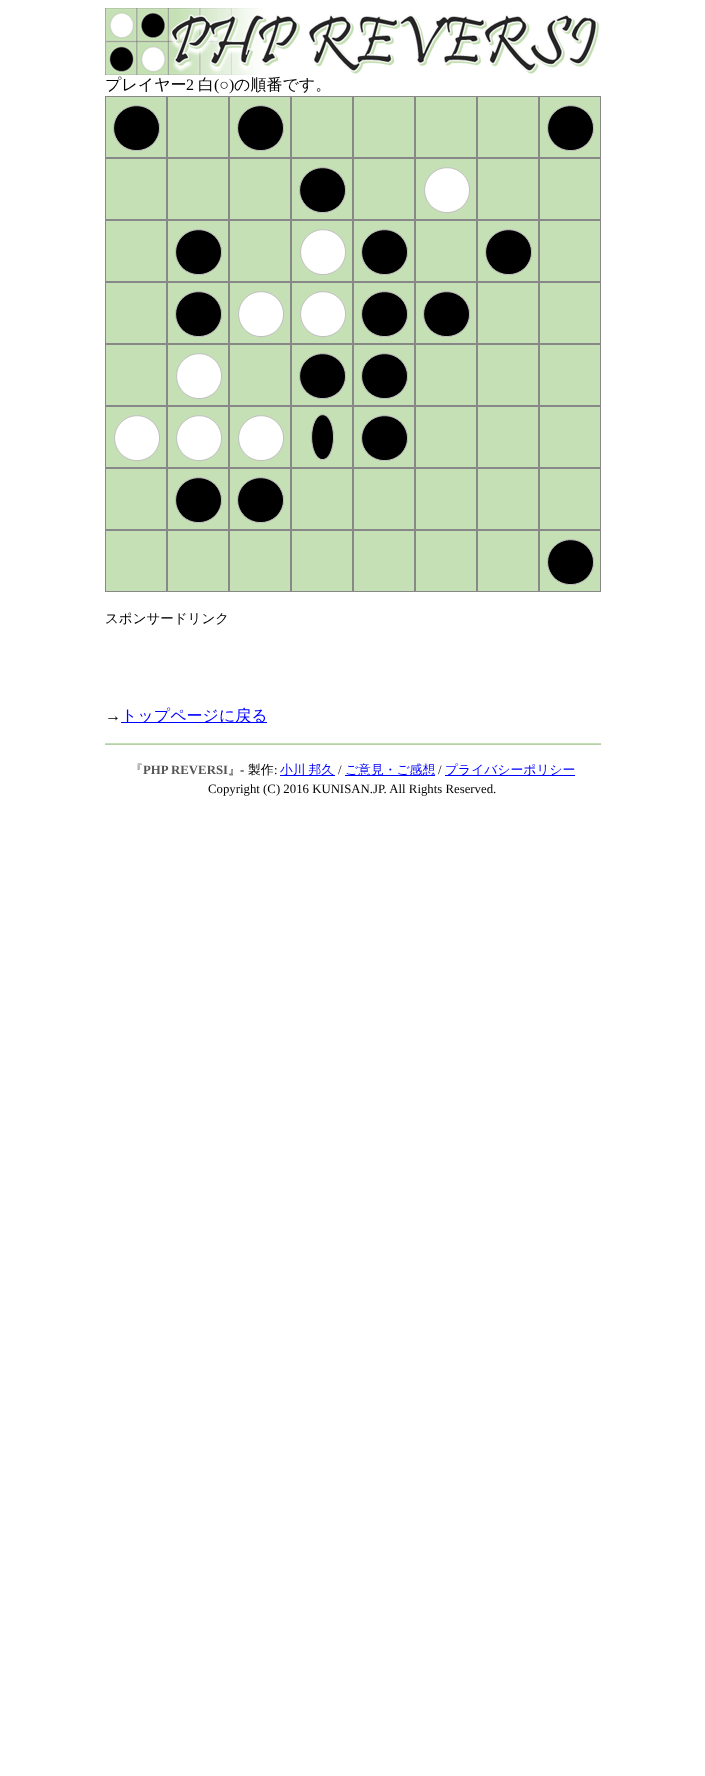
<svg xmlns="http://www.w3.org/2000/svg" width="705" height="1776">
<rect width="100%" height="100%" fill="#fff"/>
<image x="105" y="8" width="495" height="67" href="media/1.png"/>
<text x="105" y="90" style="font-family:WenQuanYi Zen Hei;font-size:16px;font-weight:500;fill:#000">プレイヤー</text>
<text x="186" y="90" style="font-family:Liberation Serif;font-size:16px;fill:#000">2</text>
<text x="198" y="90" style="font-family:WenQuanYi Zen Hei;font-size:16px;font-weight:500;fill:#000">白</text>
<text x="214" y="90" style="font-family:Liberation Serif;font-size:16px;fill:#000">(○)</text>
<text x="234" y="90" style="font-family:WenQuanYi Zen Hei;font-size:16px;font-weight:500;fill:#000">の順番です。</text>
<rect x="105.5" y="96.5" width="61" height="61" fill="none" stroke="#888"/>
<rect x="167.5" y="96.5" width="61" height="61" fill="none" stroke="#888"/>
<rect x="229.5" y="96.5" width="61" height="61" fill="none" stroke="#888"/>
<rect x="291.5" y="96.5" width="61" height="61" fill="none" stroke="#888"/>
<rect x="353.5" y="96.5" width="61" height="61" fill="none" stroke="#888"/>
<rect x="415.5" y="96.5" width="61" height="61" fill="none" stroke="#888"/>
<rect x="477.5" y="96.5" width="61" height="61" fill="none" stroke="#888"/>
<rect x="539.5" y="96.5" width="61" height="61" fill="none" stroke="#888"/>
<image x="106" y="97" width="60" height="60" href="media/2.png"/>
<rect x="168" y="97" width="60" height="60" fill="#c5e0b4"/>
<image x="230" y="97" width="60" height="60" href="media/2.png"/>
<rect x="292" y="97" width="60" height="60" fill="#c5e0b4"/>
<rect x="354" y="97" width="60" height="60" fill="#c5e0b4"/>
<rect x="416" y="97" width="60" height="60" fill="#c5e0b4"/>
<rect x="478" y="97" width="60" height="60" fill="#c5e0b4"/>
<image x="540" y="97" width="60" height="60" href="media/2.png"/>
<rect x="105.5" y="158.5" width="61" height="61" fill="none" stroke="#888"/>
<rect x="167.5" y="158.5" width="61" height="61" fill="none" stroke="#888"/>
<rect x="229.5" y="158.5" width="61" height="61" fill="none" stroke="#888"/>
<rect x="291.5" y="158.5" width="61" height="61" fill="none" stroke="#888"/>
<rect x="353.5" y="158.5" width="61" height="61" fill="none" stroke="#888"/>
<rect x="415.5" y="158.5" width="61" height="61" fill="none" stroke="#888"/>
<rect x="477.5" y="158.5" width="61" height="61" fill="none" stroke="#888"/>
<rect x="539.5" y="158.5" width="61" height="61" fill="none" stroke="#888"/>
<rect x="106" y="159" width="60" height="60" fill="#c5e0b4"/>
<rect x="168" y="159" width="60" height="60" fill="#c5e0b4"/>
<rect x="230" y="159" width="60" height="60" fill="#c5e0b4"/>
<image x="292" y="159" width="60" height="60" href="media/2.png"/>
<rect x="354" y="159" width="60" height="60" fill="#c5e0b4"/>
<image x="416" y="159" width="60" height="60" href="media/3.png"/>
<rect x="478" y="159" width="60" height="60" fill="#c5e0b4"/>
<rect x="540" y="159" width="60" height="60" fill="#c5e0b4"/>
<rect x="105.5" y="220.5" width="61" height="61" fill="none" stroke="#888"/>
<rect x="167.5" y="220.5" width="61" height="61" fill="none" stroke="#888"/>
<rect x="229.5" y="220.5" width="61" height="61" fill="none" stroke="#888"/>
<rect x="291.5" y="220.5" width="61" height="61" fill="none" stroke="#888"/>
<rect x="353.5" y="220.5" width="61" height="61" fill="none" stroke="#888"/>
<rect x="415.5" y="220.5" width="61" height="61" fill="none" stroke="#888"/>
<rect x="477.5" y="220.5" width="61" height="61" fill="none" stroke="#888"/>
<rect x="539.5" y="220.5" width="61" height="61" fill="none" stroke="#888"/>
<rect x="106" y="221" width="60" height="60" fill="#c5e0b4"/>
<image x="168" y="221" width="60" height="60" href="media/2.png"/>
<rect x="230" y="221" width="60" height="60" fill="#c5e0b4"/>
<image x="292" y="221" width="60" height="60" href="media/3.png"/>
<image x="354" y="221" width="60" height="60" href="media/2.png"/>
<rect x="416" y="221" width="60" height="60" fill="#c5e0b4"/>
<image x="478" y="221" width="60" height="60" href="media/2.png"/>
<rect x="540" y="221" width="60" height="60" fill="#c5e0b4"/>
<rect x="105.5" y="282.5" width="61" height="61" fill="none" stroke="#888"/>
<rect x="167.5" y="282.5" width="61" height="61" fill="none" stroke="#888"/>
<rect x="229.5" y="282.5" width="61" height="61" fill="none" stroke="#888"/>
<rect x="291.5" y="282.5" width="61" height="61" fill="none" stroke="#888"/>
<rect x="353.5" y="282.5" width="61" height="61" fill="none" stroke="#888"/>
<rect x="415.5" y="282.5" width="61" height="61" fill="none" stroke="#888"/>
<rect x="477.5" y="282.5" width="61" height="61" fill="none" stroke="#888"/>
<rect x="539.5" y="282.5" width="61" height="61" fill="none" stroke="#888"/>
<rect x="106" y="283" width="60" height="60" fill="#c5e0b4"/>
<image x="168" y="283" width="60" height="60" href="media/2.png"/>
<image x="230" y="283" width="60" height="60" href="media/3.png"/>
<image x="292" y="283" width="60" height="60" href="media/3.png"/>
<image x="354" y="283" width="60" height="60" href="media/2.png"/>
<image x="416" y="283" width="60" height="60" href="media/2.png"/>
<rect x="478" y="283" width="60" height="60" fill="#c5e0b4"/>
<rect x="540" y="283" width="60" height="60" fill="#c5e0b4"/>
<rect x="105.5" y="344.5" width="61" height="61" fill="none" stroke="#888"/>
<rect x="167.5" y="344.5" width="61" height="61" fill="none" stroke="#888"/>
<rect x="229.5" y="344.5" width="61" height="61" fill="none" stroke="#888"/>
<rect x="291.5" y="344.5" width="61" height="61" fill="none" stroke="#888"/>
<rect x="353.5" y="344.5" width="61" height="61" fill="none" stroke="#888"/>
<rect x="415.5" y="344.5" width="61" height="61" fill="none" stroke="#888"/>
<rect x="477.5" y="344.5" width="61" height="61" fill="none" stroke="#888"/>
<rect x="539.5" y="344.5" width="61" height="61" fill="none" stroke="#888"/>
<rect x="106" y="345" width="60" height="60" fill="#c5e0b4"/>
<image x="168" y="345" width="60" height="60" href="media/3.png"/>
<rect x="230" y="345" width="60" height="60" fill="#c5e0b4"/>
<image x="292" y="345" width="60" height="60" href="media/2.png"/>
<image x="354" y="345" width="60" height="60" href="media/2.png"/>
<rect x="416" y="345" width="60" height="60" fill="#c5e0b4"/>
<rect x="478" y="345" width="60" height="60" fill="#c5e0b4"/>
<rect x="540" y="345" width="60" height="60" fill="#c5e0b4"/>
<rect x="105.5" y="406.5" width="61" height="61" fill="none" stroke="#888"/>
<rect x="167.5" y="406.5" width="61" height="61" fill="none" stroke="#888"/>
<rect x="229.5" y="406.5" width="61" height="61" fill="none" stroke="#888"/>
<rect x="291.5" y="406.5" width="61" height="61" fill="none" stroke="#888"/>
<rect x="353.5" y="406.5" width="61" height="61" fill="none" stroke="#888"/>
<rect x="415.5" y="406.5" width="61" height="61" fill="none" stroke="#888"/>
<rect x="477.5" y="406.5" width="61" height="61" fill="none" stroke="#888"/>
<rect x="539.5" y="406.5" width="61" height="61" fill="none" stroke="#888"/>
<image x="106" y="407" width="60" height="60" href="media/3.png"/>
<image x="168" y="407" width="60" height="60" href="media/3.png"/>
<image x="230" y="407" width="60" height="60" href="media/3.png"/>
<image x="292" y="407" width="60" height="60" href="media/4.png"/>
<image x="354" y="407" width="60" height="60" href="media/2.png"/>
<rect x="416" y="407" width="60" height="60" fill="#c5e0b4"/>
<rect x="478" y="407" width="60" height="60" fill="#c5e0b4"/>
<rect x="540" y="407" width="60" height="60" fill="#c5e0b4"/>
<rect x="105.5" y="468.5" width="61" height="61" fill="none" stroke="#888"/>
<rect x="167.5" y="468.5" width="61" height="61" fill="none" stroke="#888"/>
<rect x="229.5" y="468.5" width="61" height="61" fill="none" stroke="#888"/>
<rect x="291.5" y="468.5" width="61" height="61" fill="none" stroke="#888"/>
<rect x="353.5" y="468.5" width="61" height="61" fill="none" stroke="#888"/>
<rect x="415.5" y="468.5" width="61" height="61" fill="none" stroke="#888"/>
<rect x="477.5" y="468.5" width="61" height="61" fill="none" stroke="#888"/>
<rect x="539.5" y="468.5" width="61" height="61" fill="none" stroke="#888"/>
<rect x="106" y="469" width="60" height="60" fill="#c5e0b4"/>
<image x="168" y="469" width="60" height="60" href="media/2.png"/>
<image x="230" y="469" width="60" height="60" href="media/5.png"/>
<rect x="292" y="469" width="60" height="60" fill="#c5e0b4"/>
<rect x="354" y="469" width="60" height="60" fill="#c5e0b4"/>
<rect x="416" y="469" width="60" height="60" fill="#c5e0b4"/>
<rect x="478" y="469" width="60" height="60" fill="#c5e0b4"/>
<rect x="540" y="469" width="60" height="60" fill="#c5e0b4"/>
<rect x="105.5" y="530.5" width="61" height="61" fill="none" stroke="#888"/>
<rect x="167.5" y="530.5" width="61" height="61" fill="none" stroke="#888"/>
<rect x="229.5" y="530.5" width="61" height="61" fill="none" stroke="#888"/>
<rect x="291.5" y="530.5" width="61" height="61" fill="none" stroke="#888"/>
<rect x="353.5" y="530.5" width="61" height="61" fill="none" stroke="#888"/>
<rect x="415.5" y="530.5" width="61" height="61" fill="none" stroke="#888"/>
<rect x="477.5" y="530.5" width="61" height="61" fill="none" stroke="#888"/>
<rect x="539.5" y="530.5" width="61" height="61" fill="none" stroke="#888"/>
<rect x="106" y="531" width="60" height="60" fill="#c5e0b4"/>
<rect x="168" y="531" width="60" height="60" fill="#c5e0b4"/>
<rect x="230" y="531" width="60" height="60" fill="#c5e0b4"/>
<rect x="292" y="531" width="60" height="60" fill="#c5e0b4"/>
<rect x="354" y="531" width="60" height="60" fill="#c5e0b4"/>
<rect x="416" y="531" width="60" height="60" fill="#c5e0b4"/>
<rect x="478" y="531" width="60" height="60" fill="#c5e0b4"/>
<image x="540" y="531" width="60" height="60" href="media/2.png"/>
<text x="105" y="623" style="font-family:WenQuanYi Zen Hei;font-size:13.5px;font-weight:500;fill:#000">スポンサードリンク</text>
<text x="105" y="721" style="font-family:Liberation Serif;font-size:16px;fill:#000">→</text>
<rect x="121" y="722" width="146" height="1" fill="#00f"/>
<text x="121" y="721" style="font-family:WenQuanYi Zen Hei;font-size:16px;font-weight:500;fill:#00f">トップページに戻る</text>
<image x="105" y="743" width="496" height="2" href="media/6.png"/>
<text x="130" y="774" style="font-family:WenQuanYi Zen Hei;font-size:12.8px;font-weight:500;fill:#000">『</text>
<text x="143" y="774" style="font-family:Liberation Serif;font-size:12.8px;font-weight:bold;fill:#555">PHP REVERSI</text>
<text x="228" y="774" style="font-family:WenQuanYi Zen Hei;font-size:12.8px;font-weight:500;fill:#000">』</text>
<text x="240" y="774" style="font-family:Liberation Serif;font-size:12.8px;fill:#000">-</text>
<text x="248" y="774" style="font-family:WenQuanYi Zen Hei;font-size:12.8px;font-weight:500;fill:#000">製作</text>
<text x="274" y="774" style="font-family:Liberation Serif;font-size:12.8px;fill:#000">:</text>
<rect x="280" y="775" width="55" height="1" fill="#00f"/>
<text x="280" y="774" word-spacing="-1" style="font-family:WenQuanYi Zen Hei;font-size:12.8px;font-weight:500;fill:#00f">小川 邦久</text>
<text x="338" y="774" style="font-family:Liberation Serif;font-size:12.8px;fill:#000">/</text>
<rect x="345" y="775" width="90" height="1" fill="#00f"/>
<text x="345" y="774" style="font-family:WenQuanYi Zen Hei;font-size:12.8px;font-weight:500;fill:#00f">ご意見・ご感想</text>
<text x="438" y="774" style="font-family:Liberation Serif;font-size:12.8px;fill:#000">/</text>
<rect x="445" y="775" width="130" height="1" fill="#00f"/>
<text x="445" y="774" style="font-family:WenQuanYi Zen Hei;font-size:12.8px;font-weight:500;fill:#00f">プライバシーポリシー</text>
<text x="208" y="793" style="font-family:Liberation Serif;font-size:12.8px;fill:#000">Copyright (C) 2016 KUNISAN.JP. All Rights Reserved.</text>
</svg>
